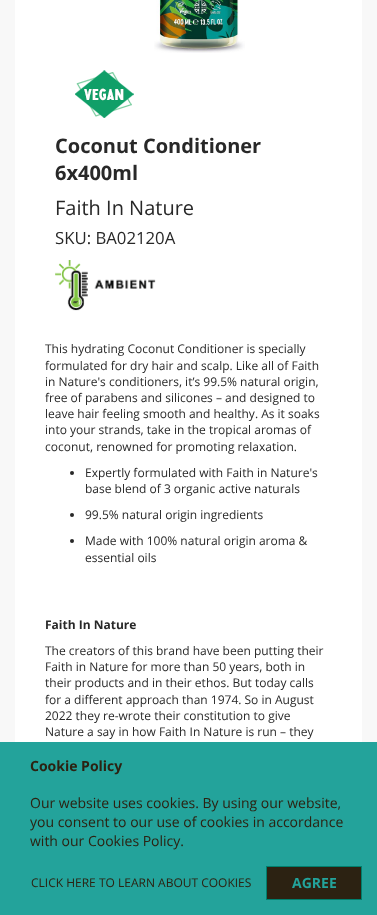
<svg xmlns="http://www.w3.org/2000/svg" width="377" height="915">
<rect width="100%" height="100%" fill="#f8f8f8"/>
<rect x="15" y="-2" width="347" height="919" fill="#8c8686" filter="blur(0.5px)"/>
<rect x="15" width="347" height="742" fill="#fff"/>
<image x="154" y="0" width="91" height="53" href="media/1.png"/>
<image x="75" y="70" width="59" height="48" href="media/2.png"/>
<text x="55" y="153" style="font-family:Open Sans;font-size:20px;font-weight:bold;fill:#282828">Coconut Conditioner</text>
<text x="55" y="180" style="font-family:Open Sans;font-size:20px;font-weight:bold;fill:#282828">6x400ml</text>
<text x="55" y="215" style="font-family:Open Sans;font-size:20px;fill:#282828">Faith In Nature</text>
<text x="55" y="244" style="font-family:Open Sans;font-size:16.75px;fill:#282828">SKU: BA02120A</text>
<image x="55" y="260" width="101" height="51" href="media/3.png"/>
<text x="45" y="353" style="font-family:Open Sans;font-size:12px;fill:#282828">This hydrating Coconut Conditioner is specially</text>
<text x="45" y="370" style="font-family:Open Sans;font-size:12px;fill:#282828">formulated for dry hair and scalp. Like all of Faith</text>
<text x="45" y="386" style="font-family:Open Sans;font-size:12px;fill:#282828">in Nature's conditioners, it’s 99.5% natural origin,</text>
<text x="45" y="402" style="font-family:Open Sans;font-size:12px;fill:#282828">free of parabens and silicones – and designed to</text>
<text x="45" y="418" style="font-family:Open Sans;font-size:12px;fill:#282828">leave hair feeling smooth and healthy. As it soaks</text>
<text x="45" y="434" style="font-family:Open Sans;font-size:12px;fill:#282828">into your strands, take in the tropical aromas of</text>
<text x="45" y="451" style="font-family:Open Sans;font-size:12px;fill:#282828">coconut, renowned for promoting relaxation.</text>
<circle cx="72" cy="473" r="2" fill="#282828"/>
<text x="85" y="477" style="font-family:Open Sans;font-size:12px;fill:#282828">Expertly formulated with Faith in Nature's</text>
<text x="85" y="493" style="font-family:Open Sans;font-size:12px;fill:#282828">base blend of 3 organic active naturals</text>
<circle cx="72" cy="515" r="2" fill="#282828"/>
<text x="85" y="519" style="font-family:Open Sans;font-size:12px;fill:#282828">99.5% natural origin ingredients</text>
<circle cx="72" cy="541" r="2" fill="#282828"/>
<text x="85" y="545" style="font-family:Open Sans;font-size:12px;fill:#282828">Made with 100% natural origin aroma &amp;</text>
<text x="85" y="562" style="font-family:Open Sans;font-size:12px;fill:#282828">essential oils</text>
<text x="45" y="629" style="font-family:Open Sans;font-size:12px;font-weight:bold;fill:#282828">Faith In Nature</text>
<text x="45" y="655" style="font-family:Open Sans;font-size:12px;fill:#282828">The creators of this brand have been putting their</text>
<text x="45" y="671" style="font-family:Open Sans;font-size:12px;fill:#282828">Faith in Nature for more than 50 years, both in</text>
<text x="45" y="687" style="font-family:Open Sans;font-size:12px;fill:#282828">their products and in their ethos. But today calls</text>
<text x="45" y="704" style="font-family:Open Sans;font-size:12px;fill:#282828">for a different approach than 1974. So in August</text>
<text x="45" y="720" style="font-family:Open Sans;font-size:12px;fill:#282828">2022 they re-wrote their constitution to give</text>
<text x="45" y="736" style="font-family:Open Sans;font-size:12px;fill:#282828">Nature a say in how Faith In Nature is run – they</text>
<rect y="742" width="377" height="173" fill="#23a39b"/>
<text x="30" y="771" style="font-family:Open Sans;font-size:14px;font-weight:bold;fill:#2c2212">Cookie Policy</text>
<text x="30" y="808" style="font-family:Open Sans;font-size:14px;fill:#2c2212">Our website uses cookies. By using our website,</text>
<text x="30" y="827" style="font-family:Open Sans;font-size:14px;fill:#2c2212">you consent to our use of cookies in accordance</text>
<text x="30" y="846" style="font-family:Open Sans;font-size:14px;fill:#2c2212">with our Cookies Policy.</text>
<text x="31" y="887" style="font-family:Open Sans;font-size:12px;fill:#2c2212">CLICK HERE TO LEARN ABOUT COOKIES</text>
<rect x="266.5" y="866.5" width="95" height="33" fill="#2c2212" stroke="#007f6d"/>
<text x="292" y="888" style="font-family:Open Sans;font-size:14px;font-weight:bold;fill:#23a39b">AGREE</text>
</svg>
